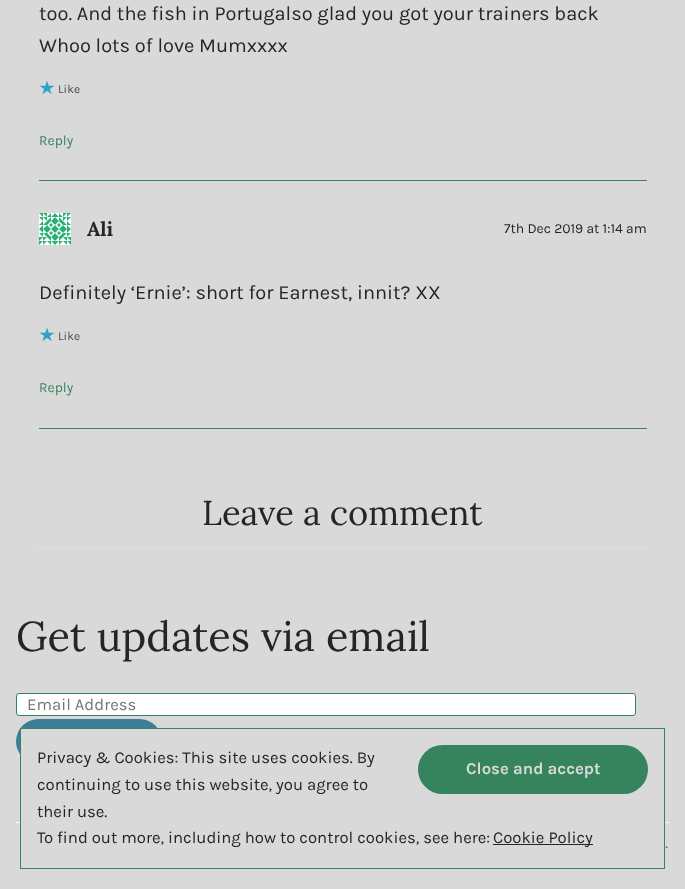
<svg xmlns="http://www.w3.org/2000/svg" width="685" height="889">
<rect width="100%" height="100%" fill="#d9d9d9"/>
<rect x="39" y="428" width="608" height="1" fill="#35845d"/>
<text x="39" y="20" style="font-family:Karla;font-size:20px;fill:#242527">too. And the fish in Portugalso glad you got your trainers back</text>
<text x="39" y="52" style="font-family:Karla;font-size:20px;fill:#242527">Whoo lots of love Mumxxxx</text>
<image x="39" y="80" width="16" height="15" href="media/1.png"/>
<text x="58" y="93" style="font-family:Karla;font-size:12px;fill:#48494b">Like</text>
<text x="39" y="145" style="font-family:Karla;font-size:13.9px;fill:#35845d">Reply</text>
<rect x="39" y="180" width="608" height="1" fill="#35845d"/>
<image x="39" y="213" width="32" height="32" href="media/2.png"/>
<text x="87" y="236" style="font-family:Lora;font-size:20px;font-weight:bold;fill:#242527">Ali</text>
<text x="504" y="233" style="font-family:Karla;font-size:13.9px;fill:#242527">7th Dec 2019 at 1:14 am</text>
<text x="39" y="299" style="font-family:Karla;font-size:20px;fill:#242527">Definitely ‘Ernie’: short for Earnest, innit? XX</text>
<image x="39" y="327" width="16" height="15" href="media/1.png"/>
<text x="58" y="340" style="font-family:Karla;font-size:12px;fill:#48494b">Like</text>
<text x="39" y="392" style="font-family:Karla;font-size:13.9px;fill:#35845d">Reply</text>
<text x="202" y="525" style="font-family:Lora;font-size:34.5px;fill:#242527">Leave a comment</text>
<rect x="39" y="547" width="608" height="2" fill="#dcdcde"/>
<rect x="16" y="822" width="653" height="1" fill="#fcfbf9"/>
<text x="16" y="651" style="font-family:Lora;font-size:41.5px;fill:#242527">Get updates via email</text>
<rect x="16.5" y="693.5" width="619" height="22" rx="2.5" fill="#fff" stroke="#35845d"/>
<text x="27" y="710" style="font-family:Karla;font-size:16.7px;fill:#757575">Email Address</text>
<rect x="16" y="719" width="146" height="45" rx="22.5" fill="#3e7d98"/>
<text x="665" y="848" style="font-family:Lora;font-size:16.7px;font-style:italic;fill:#9b6a36">.</text>
<rect x="21" y="729" width="643" height="94" fill="#d9d9d9"/>
<rect x="20.5" y="728.5" width="644" height="140" fill="none" stroke="#35845d"/>
<text x="37" y="763" style="font-family:Karla;font-size:16.7px;fill:#242527">Privacy &amp; Cookies: This site uses cookies. By</text>
<rect x="418" y="745" width="230" height="49" rx="24.5" fill="#35845d"/>
<text x="466" y="774" style="font-family:Karla;font-size:16.7px;font-weight:bold;fill:#d9d9d9">Close and accept</text>
<text x="37" y="790" style="font-family:Karla;font-size:16.7px;fill:#242527">continuing to use this website, you agree to</text>
<text x="37" y="817" style="font-family:Karla;font-size:16.7px;fill:#242527">their use.</text>
<text x="37" y="843" style="font-family:Karla;font-size:16.7px;fill:#242527">To find out more, including how to control cookies, see here:</text>
<rect x="493" y="844" width="100" height="1" fill="#242527"/>
<text x="493" y="843" style="font-family:Karla;font-size:16.7px;fill:#242527">Cookie Policy</text>
</svg>
